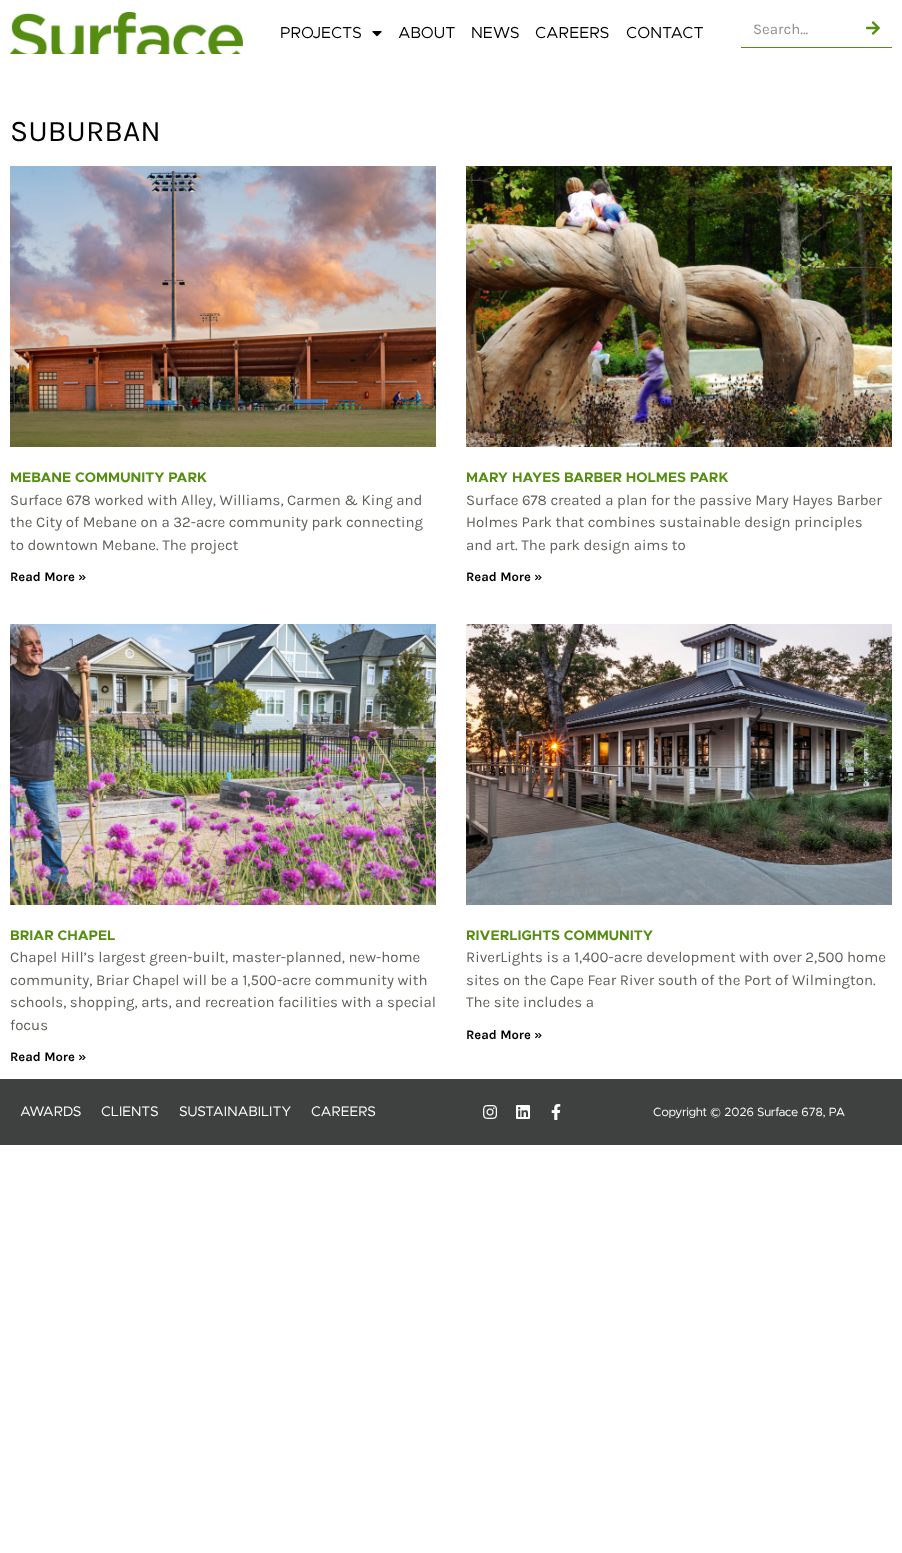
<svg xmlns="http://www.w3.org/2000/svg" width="902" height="1553">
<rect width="100%" height="100%" fill="#fff"/>
<image x="10" y="12" width="233" height="42" href="media/1.png"/>
<text x="280" y="38" style="font-family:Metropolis;font-size:16px;fill:#000">PROJECTS</text>
<image x="372" y="31" width="10" height="6" href="media/2.png"/>
<text x="398" y="38" style="font-family:Metropolis;font-size:16px;fill:#000">ABOUT</text>
<text x="471" y="38" style="font-family:Metropolis;font-size:16px;fill:#000">NEWS</text>
<text x="535" y="38" style="font-family:Metropolis;font-size:16px;fill:#000">CAREERS</text>
<text x="626" y="38" style="font-family:Metropolis;font-size:16px;fill:#000">CONTACT</text>
<rect x="741" y="47" width="151" height="1" fill="#568e14"/>
<text x="753" y="34" style="font-family:Karla;font-size:15px;fill:#8c8f93">Search...</text>
<image x="866" y="21" width="14" height="14" href="media/3.png"/>
<text x="10" y="141" style="font-family:Karla;font-size:30px;fill:#000">SUBURBAN</text>
<image x="10" y="166" width="426" height="281" href="media/4.png"/>
<text x="10" y="482" style="font-family:Metropolis;font-size:14px;font-weight:bold;fill:#568e14">MEBANE COMMUNITY PARK</text>
<text x="10" y="505" style="font-family:Karla;font-size:15px;fill:#60605b">Surface 678 worked with Alley, Williams, Carmen &amp; King and</text>
<text x="10" y="527" style="font-family:Karla;font-size:15px;fill:#60605b">the City of Mebane on a 32-acre community park connecting</text>
<text x="10" y="550" style="font-family:Karla;font-size:15px;fill:#60605b">to downtown Mebane. The project</text>
<text x="10" y="581" style="font-family:Karla;font-size:13px;font-weight:bold;fill:#000">Read More »</text>
<image x="466" y="166" width="426" height="281" href="media/5.png"/>
<text x="466" y="482" style="font-family:Metropolis;font-size:14px;font-weight:bold;fill:#568e14">MARY HAYES BARBER HOLMES PARK</text>
<text x="466" y="505" style="font-family:Karla;font-size:15px;fill:#60605b">Surface 678 created a plan for the passive Mary Hayes Barber</text>
<text x="466" y="527" style="font-family:Karla;font-size:15px;fill:#60605b">Holmes Park that combines sustainable design principles</text>
<text x="466" y="550" style="font-family:Karla;font-size:15px;fill:#60605b">and art. The park design aims to</text>
<text x="466" y="581" style="font-family:Karla;font-size:13px;font-weight:bold;fill:#000">Read More »</text>
<image x="10" y="624" width="426" height="281" href="media/6.png"/>
<text x="10" y="940" style="font-family:Metropolis;font-size:14px;font-weight:bold;fill:#568e14">BRIAR CHAPEL</text>
<text x="10" y="962" style="font-family:Karla;font-size:15px;fill:#60605b">Chapel Hill’s largest green-built, master-planned, new-home</text>
<text x="10" y="985" style="font-family:Karla;font-size:15px;fill:#60605b">community, Briar Chapel will be a 1,500-acre community with</text>
<text x="10" y="1007" style="font-family:Karla;font-size:15px;fill:#60605b">schools, shopping, arts, and recreation facilities with a special</text>
<text x="10" y="1030" style="font-family:Karla;font-size:15px;fill:#60605b">focus</text>
<text x="10" y="1061" style="font-family:Karla;font-size:13px;font-weight:bold;fill:#000">Read More »</text>
<image x="466" y="624" width="426" height="281" href="media/7.png"/>
<text x="466" y="940" style="font-family:Metropolis;font-size:14px;font-weight:bold;fill:#568e14">RIVERLIGHTS COMMUNITY</text>
<text x="466" y="962" style="font-family:Karla;font-size:15px;fill:#60605b">RiverLights is a 1,400-acre development with over 2,500 home</text>
<text x="466" y="985" style="font-family:Karla;font-size:15px;fill:#60605b">sites on the Cape Fear River south of the Port of Wilmington.</text>
<text x="466" y="1007" style="font-family:Karla;font-size:15px;fill:#60605b">The site includes a</text>
<text x="466" y="1039" style="font-family:Karla;font-size:13px;font-weight:bold;fill:#000">Read More »</text>
<rect y="1079" width="902" height="66" fill="#3f4040"/>
<text x="20" y="1116" style="font-family:Metropolis;font-size:14px;fill:#fff">AWARDS</text>
<text x="101" y="1116" style="font-family:Metropolis;font-size:14px;fill:#fff">CLIENTS</text>
<text x="179" y="1116" style="font-family:Metropolis;font-size:14px;fill:#fff">SUSTAINABILITY</text>
<text x="311" y="1116" style="font-family:Metropolis;font-size:14px;fill:#fff">CAREERS</text>
<image x="483" y="1105" width="15" height="14" href="media/8.png"/>
<image x="516" y="1105" width="14" height="14" href="media/9.png"/>
<image x="551" y="1104" width="10" height="16" href="media/10.png"/>
<text x="653" y="1116" style="font-family:Metropolis;font-size:12px;fill:#fff">Copyright © 2026 Surface 678, PA</text>
</svg>
